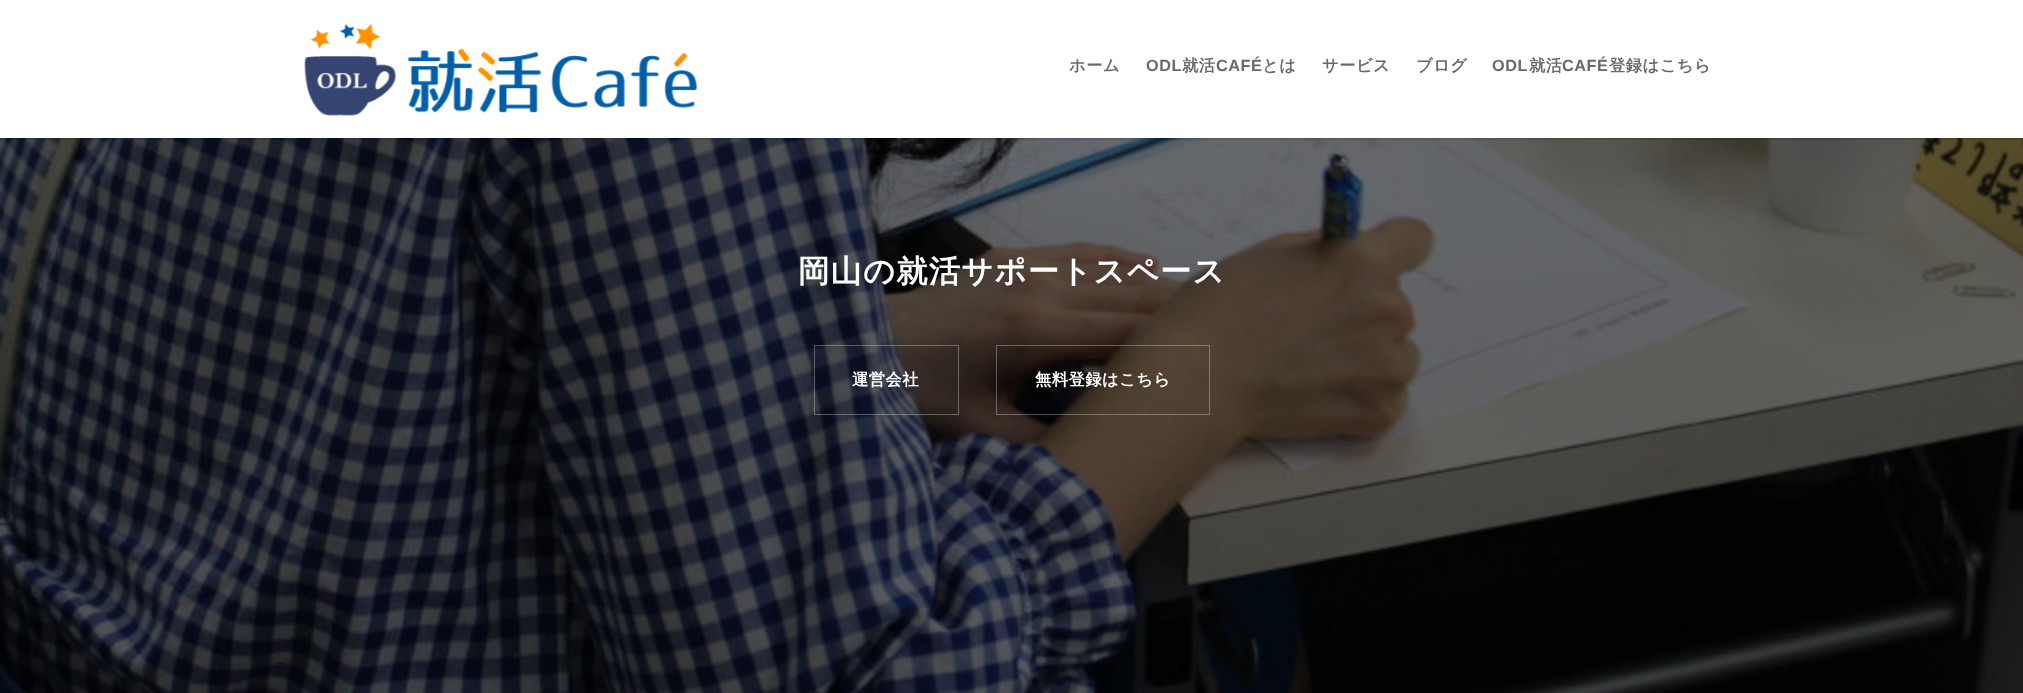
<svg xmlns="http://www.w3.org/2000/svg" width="2023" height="693">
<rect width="100%" height="100%" fill="#fff"/>
<image x="0" y="138" width="2023" height="555" href="media/2.png"/>
<rect width="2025" height="140" fill="#0000001a" filter="blur(0.5px)"/>
<rect width="2023" height="138" fill="#fff"/>
<image x="304" y="24" width="393" height="92" href="media/1.png"/>
<text x="1069" y="71" style="font-family:WenQuanYi Zen Hei;font-size:16.25px;font-weight:bold;letter-spacing:0.5px;fill:#696969">ホーム</text>
<text x="1146" y="71" style="font-family:Liberation Sans;font-size:16.25px;font-weight:bold;letter-spacing:0.5px;fill:#696969">ODL</text>
<text x="1182" y="71" style="font-family:WenQuanYi Zen Hei;font-size:16.25px;font-weight:bold;letter-spacing:0.5px;fill:#696969">就活</text>
<text x="1216" y="71" style="font-family:Liberation Sans;font-size:16.25px;font-weight:bold;letter-spacing:0.5px;fill:#696969">CAFÉ</text>
<text x="1262" y="71" style="font-family:WenQuanYi Zen Hei;font-size:16.25px;font-weight:bold;letter-spacing:0.5px;fill:#696969">とは</text>
<text x="1322" y="71" style="font-family:WenQuanYi Zen Hei;font-size:16.25px;font-weight:bold;letter-spacing:0.5px;fill:#696969">サービス</text>
<text x="1416" y="71" style="font-family:WenQuanYi Zen Hei;font-size:16.25px;font-weight:bold;letter-spacing:0.5px;fill:#696969">ブログ</text>
<text x="1492" y="71" style="font-family:Liberation Sans;font-size:16.25px;font-weight:bold;letter-spacing:0.5px;fill:#696969">ODL</text>
<text x="1529" y="71" style="font-family:WenQuanYi Zen Hei;font-size:16.25px;font-weight:bold;letter-spacing:0.5px;fill:#696969">就活</text>
<text x="1562" y="71" style="font-family:Liberation Sans;font-size:16.25px;font-weight:bold;letter-spacing:0.5px;fill:#696969">CAFÉ</text>
<text x="1609" y="71" style="font-family:WenQuanYi Zen Hei;font-size:16.25px;font-weight:bold;letter-spacing:0.5px;fill:#696969">登録はこちら</text>
<text x="798" y="282" style="font-family:WenQuanYi Zen Hei;font-size:31.25px;font-weight:bold;letter-spacing:1.25px;fill:#fff">岡山の就活サポートスペース</text>
<rect x="814.5" y="345.5" width="144" height="69" fill="none" stroke="#ffffff4d"/>
<text x="852" y="385" style="font-family:WenQuanYi Zen Hei;font-size:16.25px;font-weight:bold;letter-spacing:0.5px;fill:#fff">運営会社</text>
<rect x="996.5" y="345.5" width="213" height="69" fill="none" stroke="#ffffff4d"/>
<text x="1035" y="385" style="font-family:WenQuanYi Zen Hei;font-size:16.25px;font-weight:bold;letter-spacing:0.5px;fill:#fff">無料登録はこちら</text>
</svg>
